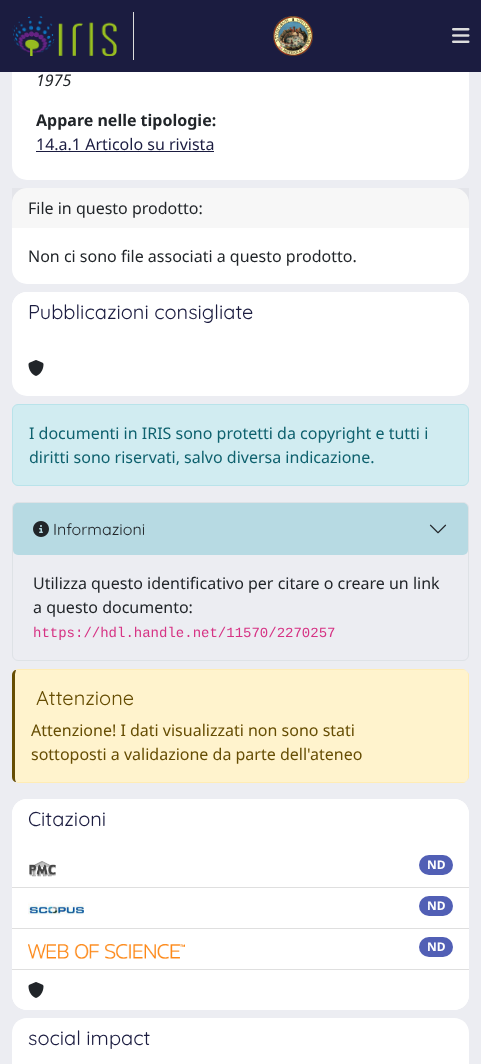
<svg xmlns="http://www.w3.org/2000/svg" width="481" height="1064">
<rect width="100%" height="100%" fill="#ecedf2"/>
<rect x="12" y="-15" width="457" height="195" rx="15" fill="#fff"/>
<rect width="481" height="72" fill="#1b1c40"/>
<rect x="133" y="12" width="1" height="48" fill="#ddd"/>
<image x="12" y="16" width="105" height="40" href="media/1.png"/>
<image x="273" y="16" width="40" height="40" href="media/2.png"/>
<image x="452" y="28" width="18" height="15" href="media/3.png"/>
<text x="36" y="86" style="font-family:Noto Sans;font-size:16px;font-style:italic;fill:#212529">1975</text>
<text x="36" y="126" style="font-family:Noto Sans;font-size:16px;font-weight:bold;fill:#212529">Appare nelle tipologie:</text>
<text x="36" y="150" style="font-family:Noto Sans;font-size:16px;fill:#1b1c40">14.a.1 Articolo su rivista</text>
<rect x="36" y="151" width="178" height="1" fill="#1b1c40"/>
<rect x="12" y="188" width="457" height="96" rx="15" fill="#fff"/>
<rect x="12" y="188" width="457" height="40" fill="#00000008"/>
<text x="28" y="214" style="font-family:Noto Sans;font-size:16px;fill:#212529">File in questo prodotto:</text>
<text x="28" y="262" style="font-family:Noto Sans;font-size:16px;fill:#212529">Non ci sono file associati a questo prodotto.</text>
<rect x="12" y="292" width="457" height="104" rx="15" fill="#fff"/>
<path d="M27 292h427c8.5 0 15 6.5 15 15v33h-457v-33c0-8.5 6.5-15 15-15z" fill="#fff"/>
<text x="28" y="319" style="font-family:Quicksand;font-size:20px;fill:#1b1c40">Pubblicazioni consigliate</text>
<image x="28" y="360" width="16" height="16" href="media/4.png"/>
<rect x="12.5" y="404.5" width="456" height="81" rx="5.5" fill="#d1ecf1" stroke="#b9e3ea"/>
<text x="29" y="439" style="font-family:Noto Sans;font-size:16px;fill:#0e616e">I documenti in IRIS sono protetti da copyright e tutti i</text>
<text x="29" y="463" style="font-family:Noto Sans;font-size:16px;fill:#0e616e">diritti sono riservati, salvo diversa indicazione.</text>
<rect x="12.5" y="502.5" width="456" height="158" rx="5.5" fill="none" stroke="#dee2e6"/>
<rect x="13" y="503" width="455" height="52" rx="5" fill="#17a2b840"/>
<image x="33" y="521" width="16" height="16" href="media/5.png"/>
<text x="53" y="535" style="font-family:Quicksand;font-size:16px;fill:#212529">Informazioni</text>
<image x="429" y="524" width="18" height="10" href="media/6.png"/>
<text x="33" y="589" style="font-family:Noto Sans;font-size:16px;fill:#212529">Utilizza questo identificativo per citare o creare un link</text>
<text x="33" y="613" style="font-family:Noto Sans;font-size:16px;fill:#212529">a questo documento:</text>
<text x="33" y="637" style="font-family:Liberation Mono;font-size:14px;fill:#d63384">https://hdl.handle.net/11570/2270257</text>
<path d="M18 670h445c3 0 5 2 5 5v102c0 3-2 5-5 5h-445c-2 0-3-2-3-5v-102c0-3 1-5 3-5z" fill="#fff3cd"/>
<path d="M18 669l-3 1h1h2h445c1 0 3 0 4 1c-1-1-3-2-4-2z" fill="#ffecb5"/>
<path d="M469 777v-103l-2-3l1 3v104l-1 3c1-1 2-3 2-4z" fill="#ffecb5"/>
<path d="M18 783h445c1 0 3-1 4-2c-1 1-3 1-4 1h-445h-2h-1z" fill="#ffecb5"/>
<path d="M12 675v102c0 2 1 4 3 5h1c-1-2-1-3-1-5v-103l1-4h-1c-2 1-3 3-3 5z" fill="#664d03"/>
<text x="36" y="705" style="font-family:Quicksand;font-size:20px;fill:#664d03">Attenzione</text>
<text x="31" y="736" style="font-family:Noto Sans;font-size:16px;fill:#664d03">Attenzione! I dati visualizzati non sono stati</text>
<text x="31" y="760" style="font-family:Noto Sans;font-size:16px;fill:#664d03">sottoposti a validazione da parte dell'ateneo</text>
<rect x="12" y="799" width="457" height="211" rx="15" fill="#fff"/>
<path d="M27 799h427c8.5 0 15 6.5 15 15v33h-457v-33c0-8.5 6.5-15 15-15z" fill="#fff"/>
<text x="28" y="826" style="font-family:Quicksand;font-size:20px;fill:#1b1c40">Citazioni</text>
<rect x="12" y="887" width="457" height="1" fill="#dfdfdf"/>
<image x="29" y="861" width="27" height="16" href="media/7.png"/>
<rect x="419" y="855" width="34" height="20" rx="10" fill="#515fb5"/>
<text x="427" y="869" style="font-family:Noto Sans;font-size:12px;font-weight:bold;fill:#fff">ND</text>
<rect x="12" y="928" width="457" height="1" fill="#dfdfdf"/>
<image x="28" y="902" width="56" height="13" href="media/8.png"/>
<rect x="419" y="896" width="34" height="20" rx="10" fill="#515fb5"/>
<text x="427" y="910" style="font-family:Noto Sans;font-size:12px;font-weight:bold;fill:#fff">ND</text>
<rect x="12" y="969" width="457" height="1" fill="#dfdfdf"/>
<image x="28" y="944" width="157" height="15" href="media/9.png"/>
<rect x="419" y="937" width="34" height="20" rx="10" fill="#515fb5"/>
<text x="427" y="951" style="font-family:Noto Sans;font-size:12px;font-weight:bold;fill:#fff">ND</text>
<path d="M12 970h457v25c0 8.5-6.5 15-15 15h-427c-8.5 0-15-6.5-15-15z" fill="#fff"/>
<image x="28" y="982" width="16" height="16" href="media/4.png"/>
<path d="M27 1018h427c8.5 0 15 6.5 15 15v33h-457v-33c0-8.5 6.5-15 15-15z" fill="#fff"/>
<text x="28" y="1045" style="font-family:Quicksand;font-size:20px;fill:#1b1c40">social impact</text>
</svg>
